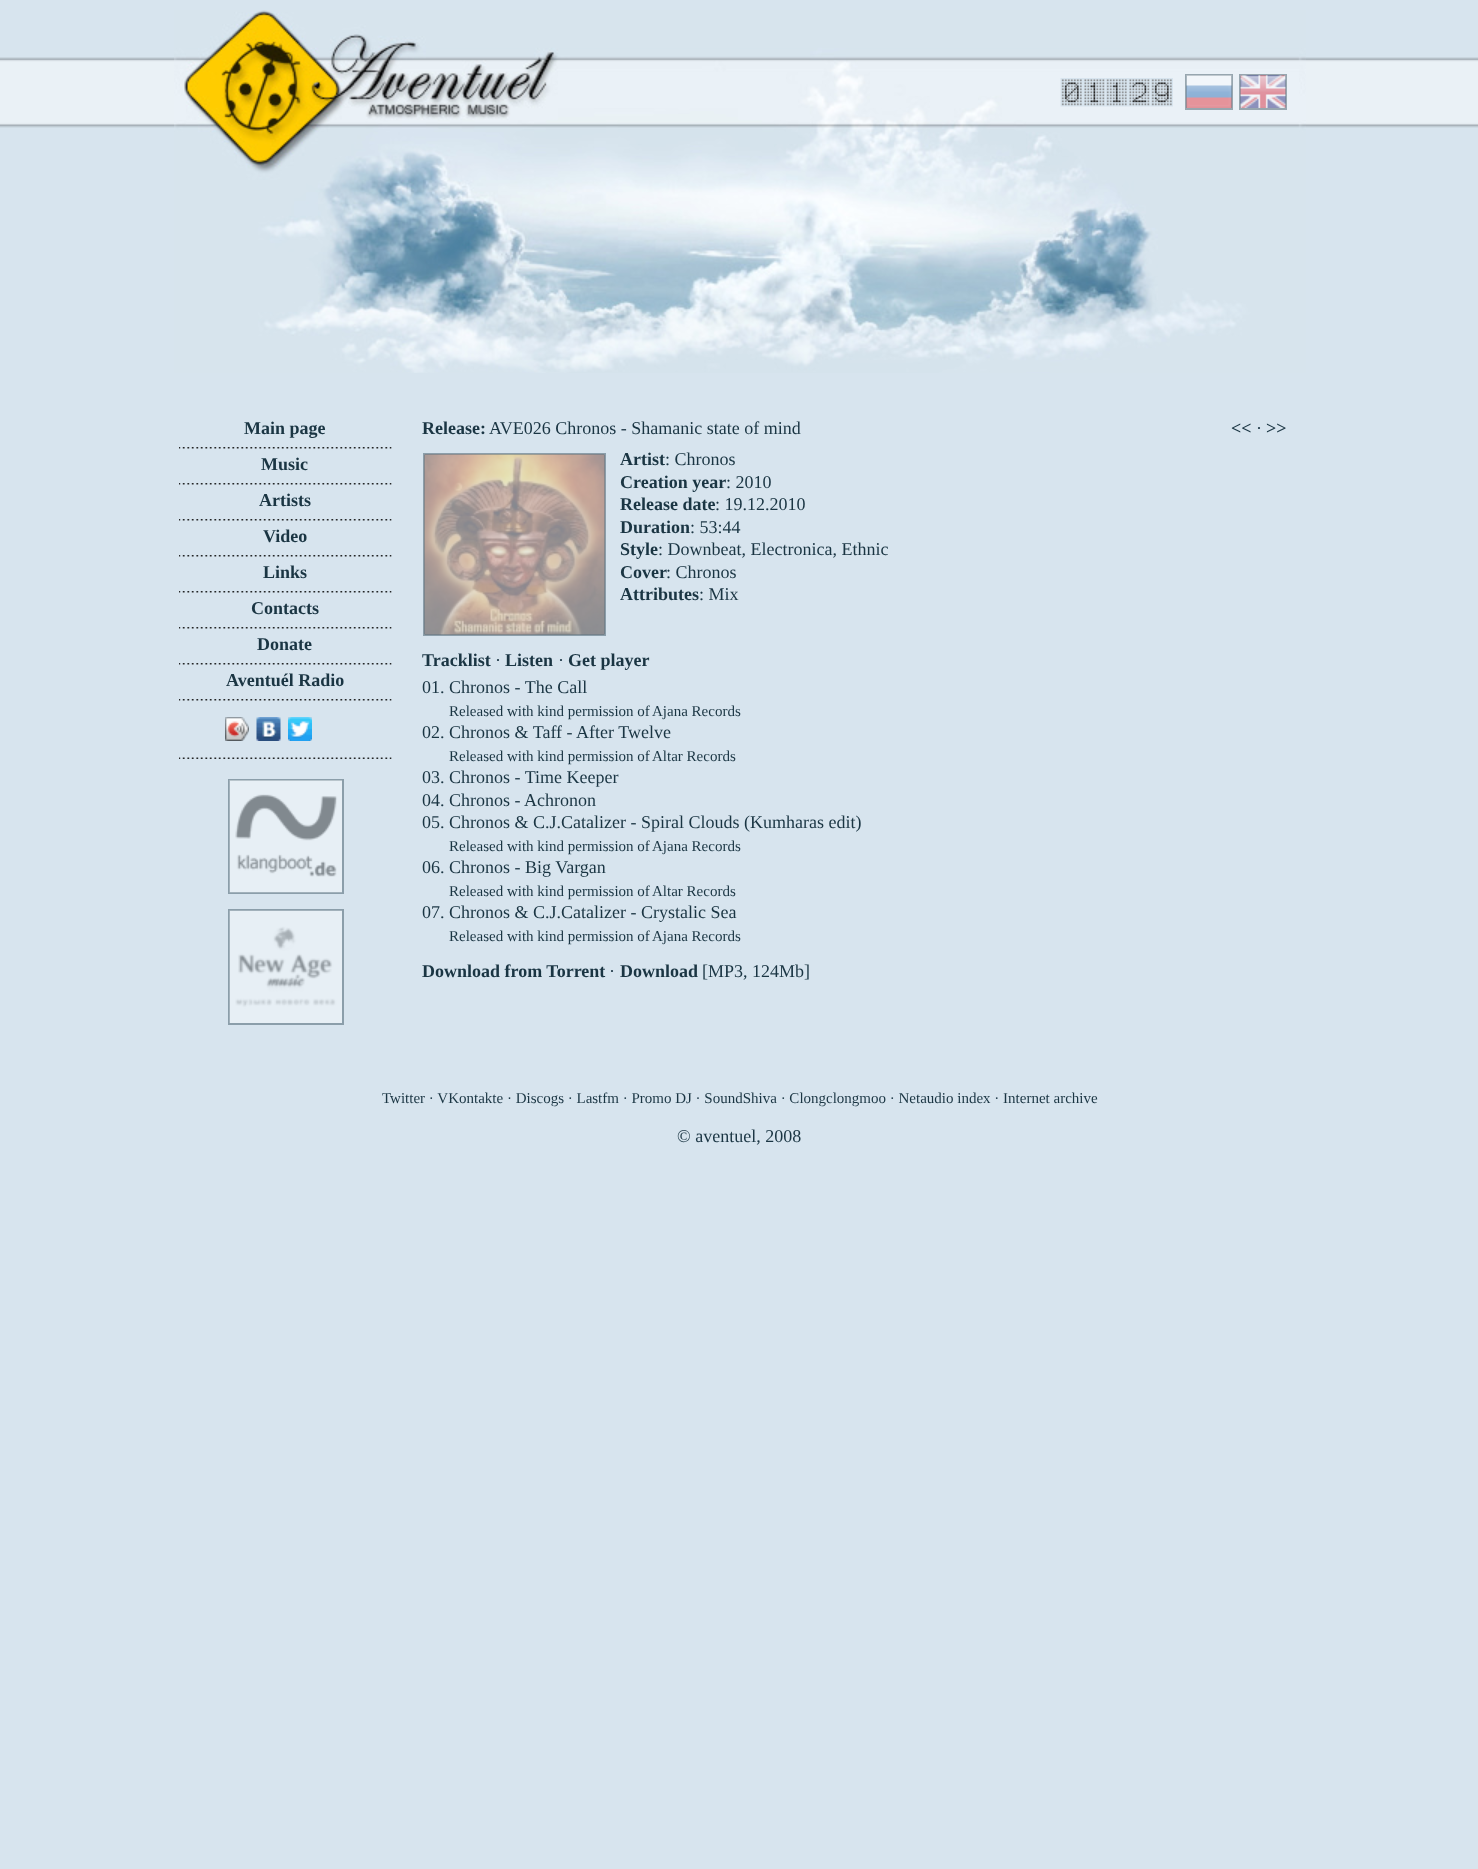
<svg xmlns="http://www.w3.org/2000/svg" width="1478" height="1869">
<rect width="100%" height="100%" fill="#d7e4ee"/>
<image x="0" y="57" width="1478" height="71" href="media/1.png"/>
<image x="174" y="10" width="1132" height="363" href="media/2.png"/>
<rect x="1186" y="75" width="46" height="34" fill="none" stroke="#97a6af" stroke-width="2"/>
<rect x="1240" y="75" width="46" height="34" fill="none" stroke="#97a6af" stroke-width="2"/>
<image x="1060" y="78" width="23" height="29" href="media/3.png"/>
<image x="1083" y="78" width="23" height="29" href="media/4.png"/>
<image x="1105" y="78" width="23" height="29" href="media/5.png"/>
<image x="1128" y="78" width="23" height="29" href="media/6.png"/>
<image x="1150" y="78" width="23" height="29" href="media/7.png"/>
<image x="1186" y="75" width="46" height="33" href="media/8.png"/>
<image x="1240" y="75" width="46" height="33" href="media/9.png"/>
<text x="244" y="434" style="font-family:Liberation Serif;font-size:18px;font-weight:bold;fill:#1a3543">Main page</text>
<image x="179" y="447" width="213" height="2" href="media/10.png"/>
<text x="261" y="470" style="font-family:Liberation Serif;font-size:18px;font-weight:bold;fill:#1a3543">Music</text>
<image x="179" y="483" width="213" height="2" href="media/10.png"/>
<text x="259" y="506" style="font-family:Liberation Serif;font-size:18px;font-weight:bold;fill:#1a3543">Artists</text>
<image x="179" y="519" width="213" height="2" href="media/10.png"/>
<text x="263" y="542" style="font-family:Liberation Serif;font-size:18px;font-weight:bold;fill:#1a3543">Video</text>
<image x="179" y="555" width="213" height="2" href="media/10.png"/>
<text x="263" y="578" style="font-family:Liberation Serif;font-size:18px;font-weight:bold;fill:#1a3543">Links</text>
<image x="179" y="591" width="213" height="2" href="media/10.png"/>
<text x="251" y="614" style="font-family:Liberation Serif;font-size:18px;font-weight:bold;fill:#1a3543">Contacts</text>
<image x="179" y="627" width="213" height="2" href="media/10.png"/>
<text x="257" y="650" style="font-family:Liberation Serif;font-size:18px;font-weight:bold;fill:#1a3543">Donate</text>
<image x="179" y="663" width="213" height="2" href="media/10.png"/>
<text x="226" y="686" style="font-family:Liberation Serif;font-size:18px;font-weight:bold;fill:#1a3543">Aventuél Radio</text>
<image x="179" y="699" width="213" height="2" href="media/10.png"/>
<image x="225" y="717" width="24" height="24" href="media/11.png"/>
<image x="225" y="717" width="24" height="24" href="media/12.png"/>
<image x="256" y="717" width="25" height="24" href="media/13.png"/>
<image x="288" y="717" width="24" height="24" href="media/14.png"/>
<image x="179" y="757" width="213" height="2" href="media/15.png"/>
<rect x="229" y="780" width="114" height="113" fill="none" stroke="#8b9eaa" stroke-width="2"/>
<image x="229" y="780" width="113" height="113" href="media/16.png"/>
<rect x="229" y="910" width="114" height="114" fill="none" stroke="#8b9eaa" stroke-width="2"/>
<image x="229" y="910" width="113" height="113" href="media/17.png"/>
<text x="422" y="434" style="font-family:Liberation Serif;font-size:18px;font-weight:bold;fill:#1a3543">Release:</text>
<text x="489" y="434" style="font-family:Liberation Serif;font-size:18px;fill:#1a3543">AVE026 Chronos - Shamanic state of mind</text>
<text x="1231" y="434" style="font-family:Liberation Serif;font-size:18px;font-weight:bold;fill:#1a3543">&lt;&lt;</text>
<text x="1256" y="434" style="font-family:Liberation Serif;font-size:18px;fill:#1a3543">·</text>
<text x="1266" y="434" style="font-family:Liberation Serif;font-size:18px;font-weight:bold;fill:#1a3543">&gt;&gt;</text>
<rect x="424" y="454" width="181" height="181" fill="none" stroke="#8b9eaa" stroke-width="2"/>
<image x="424" y="454" width="181" height="181" href="media/18.png"/>
<text x="620" y="465" style="font-family:Liberation Serif;font-size:18px;font-weight:bold;fill:#1a3543">Artist</text>
<text x="665" y="465" style="font-family:Liberation Serif;font-size:18px;fill:#1a3543">: Chronos</text>
<text x="620" y="488" style="font-family:Liberation Serif;font-size:18px;font-weight:bold;fill:#1a3543">Creation year</text>
<text x="726" y="488" style="font-family:Liberation Serif;font-size:18px;fill:#1a3543">: 2010</text>
<text x="620" y="510" style="font-family:Liberation Serif;font-size:18px;font-weight:bold;fill:#1a3543">Release date</text>
<text x="715" y="510" style="font-family:Liberation Serif;font-size:18px;fill:#1a3543">: 19.12.2010</text>
<text x="620" y="533" style="font-family:Liberation Serif;font-size:18px;font-weight:bold;fill:#1a3543">Duration</text>
<text x="690" y="533" style="font-family:Liberation Serif;font-size:18px;fill:#1a3543">: 53:44</text>
<text x="620" y="555" style="font-family:Liberation Serif;font-size:18px;font-weight:bold;fill:#1a3543">Style</text>
<text x="658" y="555" style="font-family:Liberation Serif;font-size:18px;fill:#1a3543">: Downbeat, Electronica, Ethnic</text>
<text x="620" y="578" style="font-family:Liberation Serif;font-size:18px;font-weight:bold;fill:#1a3543">Cover</text>
<text x="666" y="578" style="font-family:Liberation Serif;font-size:18px;fill:#1a3543">: Chronos</text>
<text x="620" y="600" style="font-family:Liberation Serif;font-size:18px;font-weight:bold;fill:#1a3543">Attributes</text>
<text x="699" y="600" style="font-family:Liberation Serif;font-size:18px;fill:#1a3543">: Mix</text>
<text x="422" y="666" style="font-family:Liberation Serif;font-size:18px;font-weight:bold;fill:#1a3543">Tracklist</text>
<text x="495" y="666" style="font-family:Liberation Serif;font-size:18px;fill:#1a3543">·</text>
<text x="505" y="666" style="font-family:Liberation Serif;font-size:18px;font-weight:bold;fill:#1a3543">Listen</text>
<text x="558" y="666" style="font-family:Liberation Serif;font-size:18px;fill:#1a3543">·</text>
<text x="568" y="666" style="font-family:Liberation Serif;font-size:18px;font-weight:bold;fill:#1a3543">Get player</text>
<text x="422" y="693" style="font-family:Liberation Serif;font-size:18px;fill:#1a3543">01. Chronos - The Call</text>
<text x="449" y="716" style="font-family:Liberation Serif;font-size:15px;fill:#1a3543">Released with kind permission of</text>
<text x="652" y="716" style="font-family:Liberation Serif;font-size:15px;fill:#1a3543">Ajana Records</text>
<text x="422" y="738" style="font-family:Liberation Serif;font-size:18px;fill:#1a3543">02. Chronos &amp; Taff - After Twelve</text>
<text x="449" y="761" style="font-family:Liberation Serif;font-size:15px;fill:#1a3543">Released with kind permission of</text>
<text x="652" y="761" style="font-family:Liberation Serif;font-size:15px;fill:#1a3543">Altar Records</text>
<text x="422" y="783" style="font-family:Liberation Serif;font-size:18px;fill:#1a3543">03. Chronos - Time Keeper</text>
<text x="422" y="806" style="font-family:Liberation Serif;font-size:18px;fill:#1a3543">04. Chronos - Achronon</text>
<text x="422" y="828" style="font-family:Liberation Serif;font-size:18px;fill:#1a3543">05. Chronos &amp; C.J.Catalizer - Spiral Clouds (Kumharas edit)</text>
<text x="449" y="851" style="font-family:Liberation Serif;font-size:15px;fill:#1a3543">Released with kind permission of</text>
<text x="652" y="851" style="font-family:Liberation Serif;font-size:15px;fill:#1a3543">Ajana Records</text>
<text x="422" y="873" style="font-family:Liberation Serif;font-size:18px;fill:#1a3543">06. Chronos - Big Vargan</text>
<text x="449" y="896" style="font-family:Liberation Serif;font-size:15px;fill:#1a3543">Released with kind permission of</text>
<text x="652" y="896" style="font-family:Liberation Serif;font-size:15px;fill:#1a3543">Altar Records</text>
<text x="422" y="918" style="font-family:Liberation Serif;font-size:18px;fill:#1a3543">07. Chronos &amp; C.J.Catalizer - Crystalic Sea</text>
<text x="449" y="941" style="font-family:Liberation Serif;font-size:15px;fill:#1a3543">Released with kind permission of</text>
<text x="652" y="941" style="font-family:Liberation Serif;font-size:15px;fill:#1a3543">Ajana Records</text>
<text x="422" y="977" style="font-family:Liberation Serif;font-size:18px;font-weight:bold;fill:#1a3543">Download from Torrent</text>
<text x="609" y="977" style="font-family:Liberation Serif;font-size:18px;fill:#1a3543">·</text>
<text x="620" y="977" style="font-family:Liberation Serif;font-size:18px;font-weight:bold;fill:#1a3543">Download</text>
<text x="702" y="977" style="font-family:Liberation Serif;font-size:18px;fill:#1a3543">[MP3, 124Mb]</text>
<text x="382" y="1103" style="font-family:Liberation Serif;font-size:15px;fill:#1a3543">Twitter · VKontakte · Discogs · Lastfm · Promo DJ · SoundShiva · Clongclongmoo · Netaudio index · Internet archive</text>
<text x="677" y="1142" style="font-family:Liberation Serif;font-size:18px;fill:#1a3543">© aventuel, 2008</text>
</svg>
